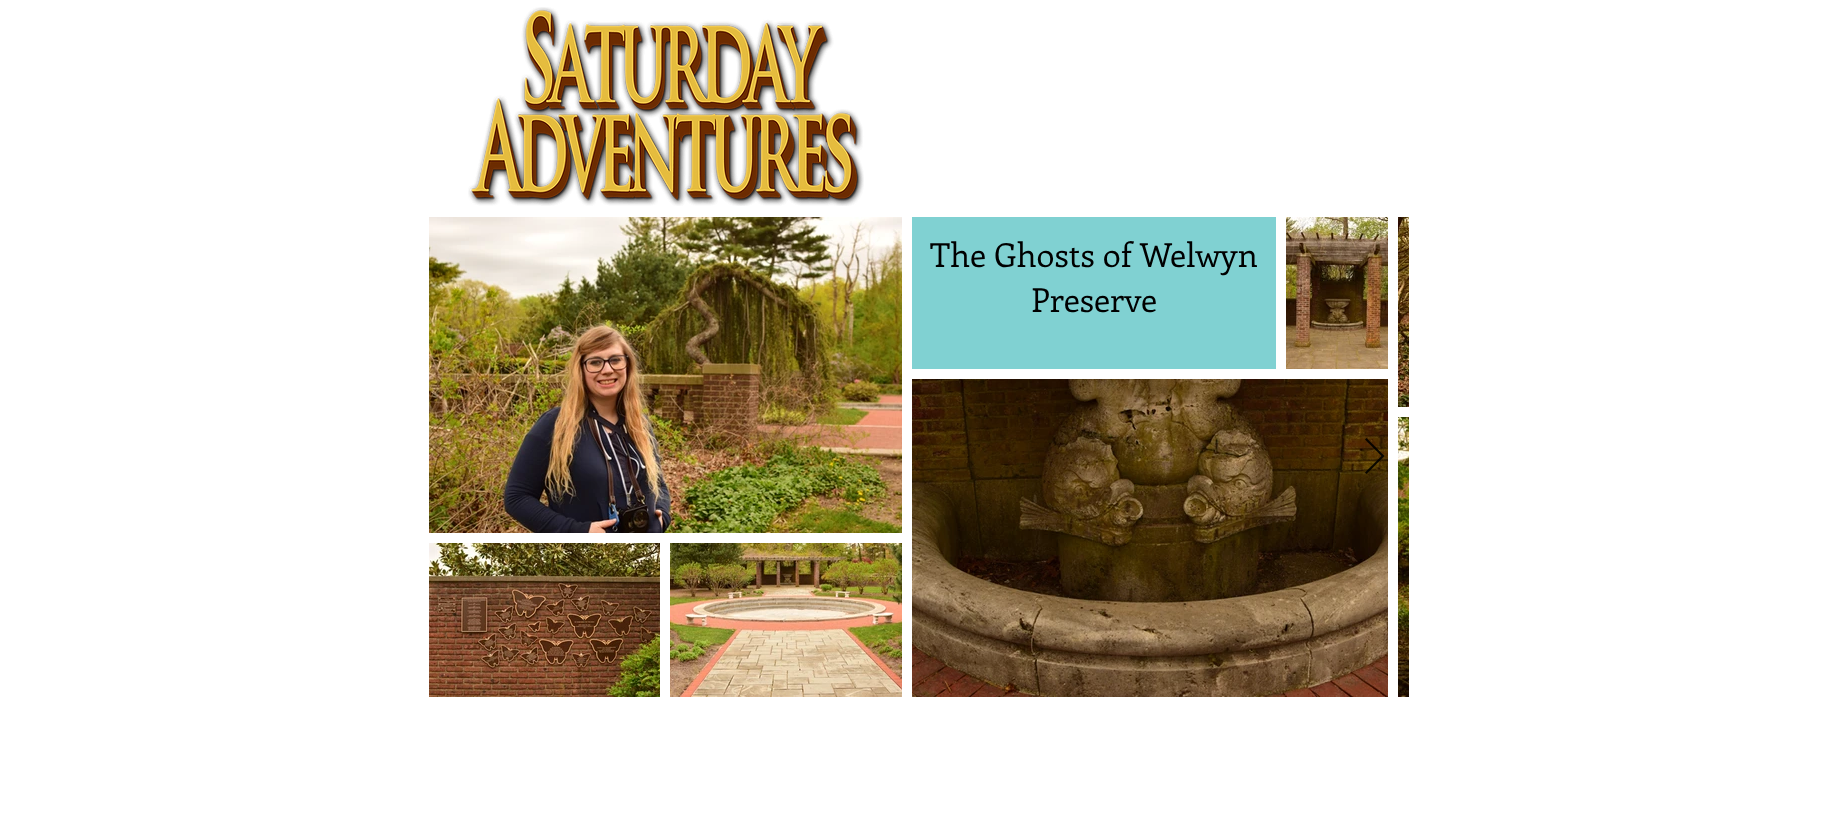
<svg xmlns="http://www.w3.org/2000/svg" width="1838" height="827">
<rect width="100%" height="100%" fill="#fff"/>
<image x="468" y="7" width="396" height="199" href="media/1.png"/>
<image x="429" y="217" width="473" height="316" href="media/2.png"/>
<image x="429" y="543" width="231" height="154" href="media/3.png"/>
<image x="670" y="543" width="232" height="154" href="media/4.png"/>
<rect x="912" y="217" width="364" height="152" fill="#80d1d2"/>
<text x="930" y="267" style="font-family:Enriqueta;font-size:33px;fill:#000">The Ghosts of Welwyn</text>
<text x="1031" y="312" style="font-family:Enriqueta;font-size:33px;fill:#000">Preserve</text>
<image x="1286" y="217" width="102" height="152" href="media/5.png"/>
<image x="912" y="379" width="476" height="318" href="media/6.png"/>
<image x="1398" y="217" width="11" height="190" href="media/7.png"/>
<image x="1398" y="417" width="11" height="280" href="media/8.png"/>
<path d="M1365 439.5l1.5-1.5l18 18l-18 18l-1.5-1.5l16.5-16.5z" fill="#000000e6"/>
</svg>
